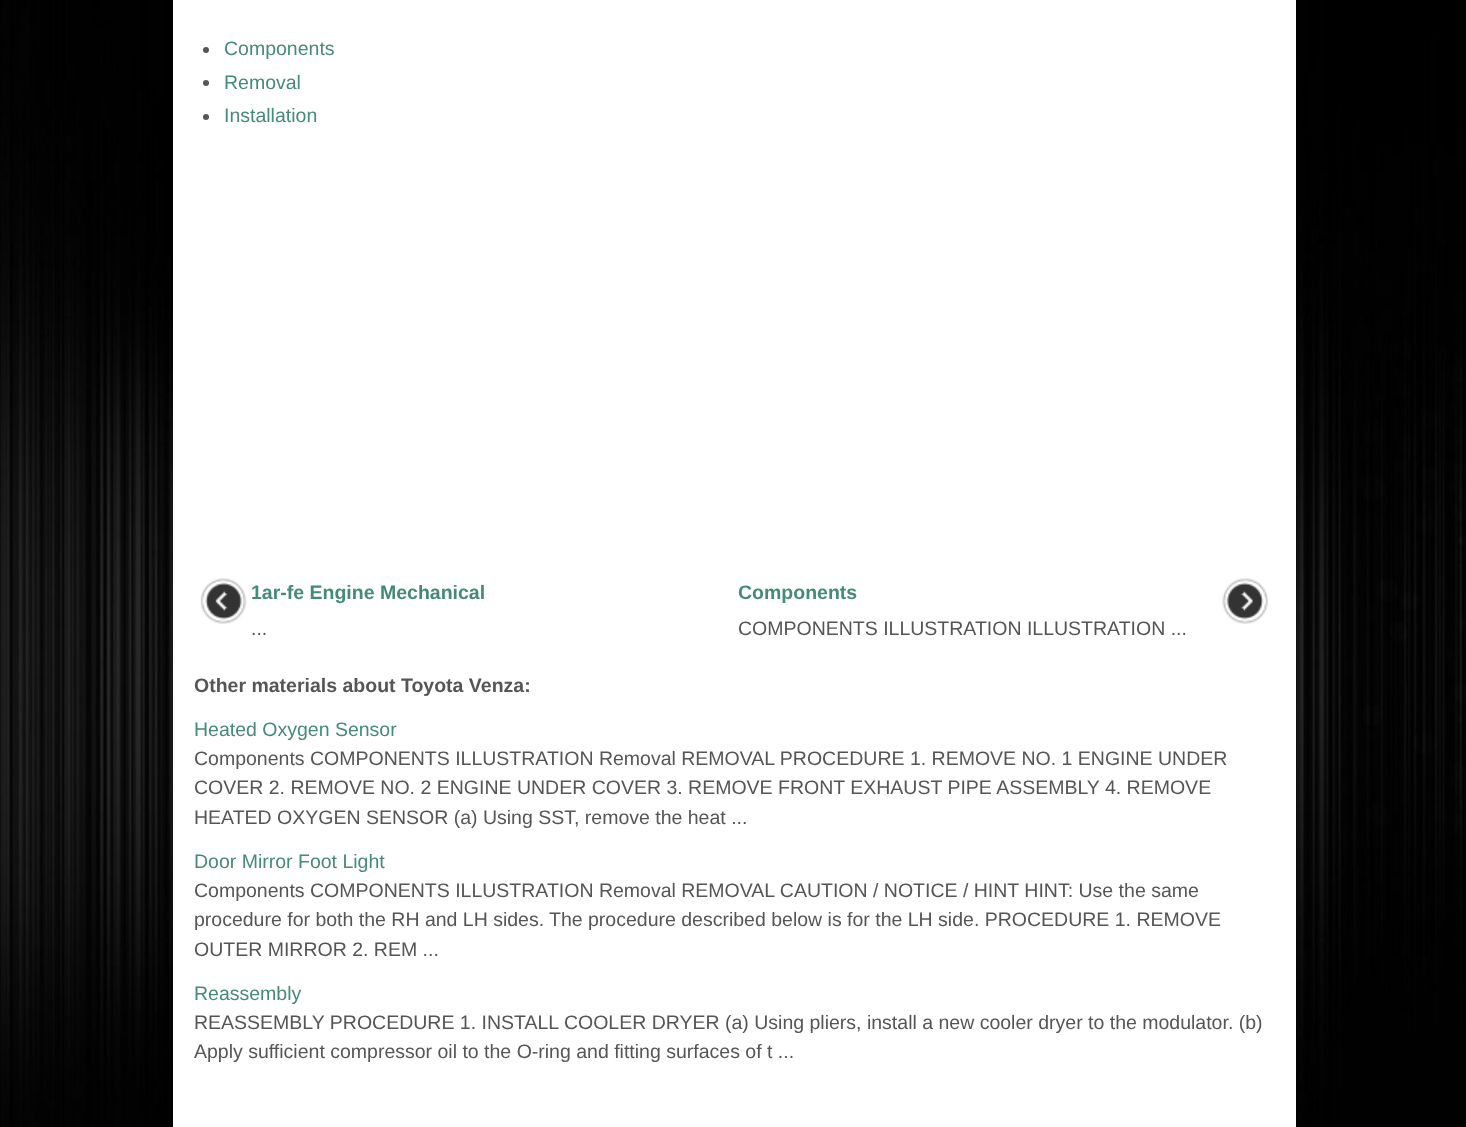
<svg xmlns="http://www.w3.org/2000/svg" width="1466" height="1127">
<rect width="100%" height="100%" fill="#fff"/>
<image x="0" y="0" width="1466" height="1127" href="media/1.png"/>
<rect x="173" width="1123" height="1127" fill="#fff"/>
<circle cx="206" cy="50" r="3" fill="#555"/>
<text x="224" y="55" style="font-family:Liberation Sans;font-size:19.5px;fill:#458b74">Components</text>
<circle cx="206" cy="83" r="3" fill="#555"/>
<text x="224" y="89" style="font-family:Liberation Sans;font-size:19.5px;fill:#458b74">Removal</text>
<circle cx="206" cy="117" r="3" fill="#555"/>
<text x="224" y="122" style="font-family:Liberation Sans;font-size:19.5px;fill:#458b74">Installation</text>
<image x="200" y="578" width="47" height="46" href="media/2.png"/>
<text x="251" y="599" style="font-family:Liberation Sans;font-size:19.5px;font-weight:bold;fill:#458b74">1ar-fe Engine Mechanical</text>
<text x="251" y="635" style="font-family:Liberation Sans;font-size:19.5px;fill:#555">...</text>
<text x="738" y="599" style="font-family:Liberation Sans;font-size:19.5px;font-weight:bold;fill:#458b74">Components</text>
<image x="1222" y="578" width="46" height="46" href="media/3.png"/>
<text x="738" y="635" style="font-family:Liberation Sans;font-size:19.5px;fill:#555">COMPONENTS ILLUSTRATION ILLUSTRATION ...</text>
<text x="194" y="692" style="font-family:Liberation Sans;font-size:19.5px;font-weight:bold;fill:#555">Other materials about Toyota Venza:</text>
<text x="194" y="736" style="font-family:Liberation Sans;font-size:19.5px;fill:#458b74">Heated Oxygen Sensor</text>
<text x="194" y="765" style="font-family:Liberation Sans;font-size:19.5px;fill:#555">Components COMPONENTS ILLUSTRATION Removal REMOVAL PROCEDURE 1. REMOVE NO. 1 ENGINE UNDER</text>
<text x="194" y="794" style="font-family:Liberation Sans;font-size:19.5px;fill:#555">COVER 2. REMOVE NO. 2 ENGINE UNDER COVER 3. REMOVE FRONT EXHAUST PIPE ASSEMBLY 4. REMOVE</text>
<text x="194" y="824" style="font-family:Liberation Sans;font-size:19.5px;fill:#555">HEATED OXYGEN SENSOR (a) Using SST, remove the heat ...</text>
<text x="194" y="868" style="font-family:Liberation Sans;font-size:19.5px;fill:#458b74">Door Mirror Foot Light</text>
<text x="194" y="897" style="font-family:Liberation Sans;font-size:19.5px;fill:#555">Components COMPONENTS ILLUSTRATION Removal REMOVAL CAUTION / NOTICE / HINT HINT: Use the same</text>
<text x="194" y="926" style="font-family:Liberation Sans;font-size:19.5px;fill:#555">procedure for both the RH and LH sides.</text>
<text x="549" y="926" style="font-family:Liberation Sans;font-size:19.5px;fill:#555">The procedure described below is for the LH side. PROCEDURE 1. REMOVE</text>
<text x="194" y="956" style="font-family:Liberation Sans;font-size:19.5px;fill:#555">OUTER MIRROR 2. REM ...</text>
<text x="194" y="1000" style="font-family:Liberation Sans;font-size:19.5px;fill:#458b74">Reassembly</text>
<text x="194" y="1029" style="font-family:Liberation Sans;font-size:19.5px;fill:#555">REASSEMBLY PROCEDURE 1. INSTALL COOLER DRYER (a) Using pliers, install a new cooler dryer to the modulator. (b)</text>
<text x="194" y="1058" style="font-family:Liberation Sans;font-size:19.5px;fill:#555">Apply sufficient compressor oil to the O-ring and fitting surfaces of t ...</text>
</svg>
